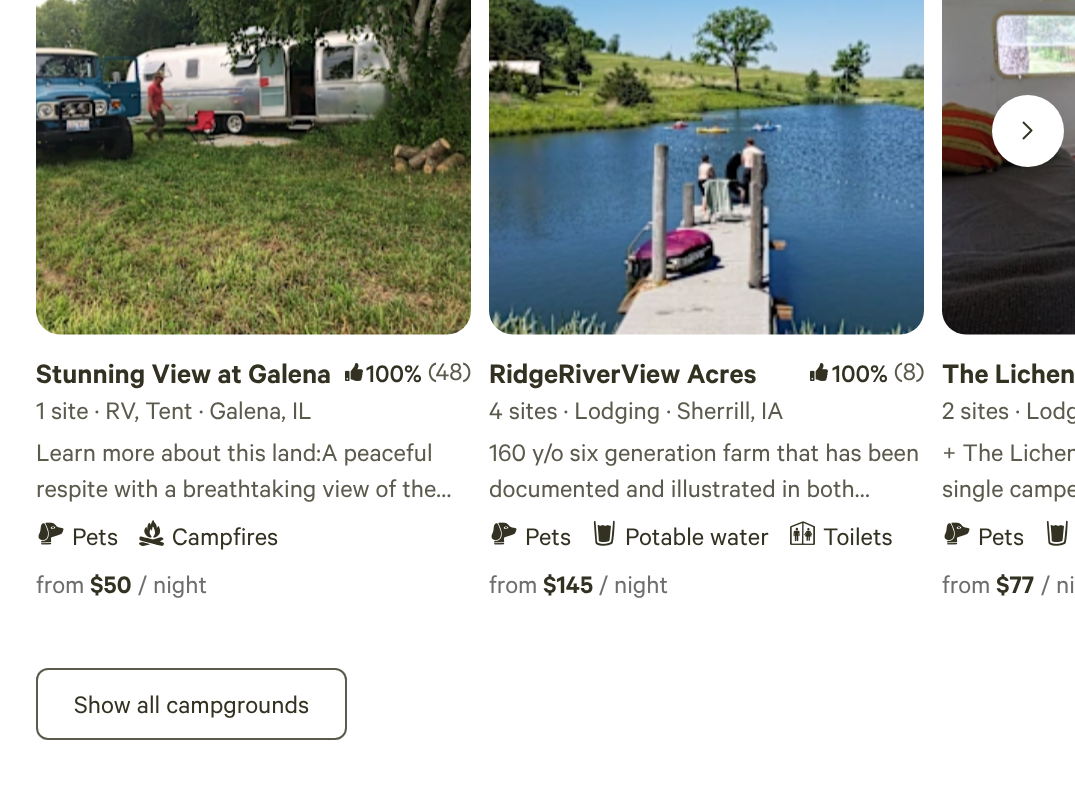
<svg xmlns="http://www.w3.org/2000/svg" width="1075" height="804">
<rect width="100%" height="100%" fill="#fff"/>
<image x="942" y="0" width="133" height="335" href="media/9.png"/>
<rect x="993" y="104" width="72" height="72" rx="36" fill="#33312133" filter="blur(15px)"/>
<circle cx="1028" cy="131" r="36" fill="#fff"/>
<image x="1022" y="121" width="11" height="19" href="media/1.png"/>
<image x="36" y="0" width="435" height="335" href="media/2.png"/>
<text x="36" y="383" style="font-family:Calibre;font-size:30px;font-weight:600;fill:#333121">Stunning View at Galena</text>
<image x="345" y="363" width="18" height="18" href="media/3.png"/>
<text x="366" y="382" style="font-family:Calibre;font-size:27px;font-weight:500;fill:#333121">100%</text>
<text x="428" y="380" style="font-family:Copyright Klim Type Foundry;font-size:27px;fill:#5c5a4d">(48)</text>
<text x="36" y="419" style="font-family:Copyright Klim Type Foundry;font-size:27px;fill:#5c5a4d">1 site · RV, Tent · Galena, IL</text>
<text x="36" y="461" style="font-family:Copyright Klim Type Foundry;font-size:27px;fill:#5c5a4d">Learn more about this land:A peaceful</text>
<text x="36" y="497" style="font-family:Copyright Klim Type Foundry;font-size:27px;fill:#5c5a4d">respite with a breathtaking view of the…</text>
<image x="38" y="522" width="26" height="23" href="media/4.png"/>
<text x="72" y="545" style="font-family:Copyright Klim Type Foundry;font-size:27px;fill:#333121">Pets</text>
<image x="139" y="520" width="25" height="27" href="media/5.png"/>
<text x="172" y="545" style="font-family:Copyright Klim Type Foundry;font-size:27px;fill:#333121">Campfires</text>
<text x="36" y="593" style="font-family:Copyright Klim Type Foundry;font-size:27px;fill:#6e6e6e">from</text>
<text x="90" y="593" style="font-family:Calibre;font-size:27px;font-weight:600;fill:#333121">$50</text>
<text x="138" y="593" style="font-family:Copyright Klim Type Foundry;font-size:27px;fill:#6e6e6e">/ night</text>
<image x="489" y="0" width="435" height="335" href="media/6.png"/>
<text x="489" y="383" style="font-family:Calibre;font-size:30px;font-weight:600;fill:#333121">RidgeRiverView Acres</text>
<image x="810" y="363" width="18" height="18" href="media/3.png"/>
<text x="832" y="382" style="font-family:Calibre;font-size:27px;font-weight:500;fill:#333121">100%</text>
<text x="894" y="380" style="font-family:Copyright Klim Type Foundry;font-size:27px;fill:#5c5a4d">(8)</text>
<text x="489" y="419" style="font-family:Copyright Klim Type Foundry;font-size:27px;fill:#5c5a4d">4 sites · Lodging · Sherrill, IA</text>
<text x="489" y="461" style="font-family:Copyright Klim Type Foundry;font-size:27px;fill:#5c5a4d">160 y/o six generation farm that has been</text>
<text x="489" y="497" style="font-family:Copyright Klim Type Foundry;font-size:27px;fill:#5c5a4d">documented and illustrated in both…</text>
<image x="491" y="522" width="26" height="23" href="media/4.png"/>
<text x="525" y="545" style="font-family:Copyright Klim Type Foundry;font-size:27px;fill:#333121">Pets</text>
<image x="593" y="520" width="22" height="26" href="media/7.png"/>
<text x="625" y="545" style="font-family:Copyright Klim Type Foundry;font-size:27px;fill:#333121">Potable water</text>
<image x="790" y="521" width="25" height="24" href="media/8.png"/>
<text x="823" y="545" style="font-family:Copyright Klim Type Foundry;font-size:27px;fill:#333121">Toilets</text>
<text x="489" y="593" style="font-family:Copyright Klim Type Foundry;font-size:27px;fill:#6e6e6e">from</text>
<text x="543" y="593" style="font-family:Calibre;font-size:27px;font-weight:600;fill:#333121">$145</text>
<text x="599" y="593" style="font-family:Copyright Klim Type Foundry;font-size:27px;fill:#6e6e6e">/ night</text>
<text x="942" y="383" style="font-family:Calibre;font-size:30px;font-weight:600;fill:#333121">The Lichen</text>
<text x="942" y="419" style="font-family:Copyright Klim Type Foundry;font-size:27px;fill:#5c5a4d">2 sites · Lodg</text>
<text x="942" y="461" style="font-family:Copyright Klim Type Foundry;font-size:27px;fill:#5c5a4d">+ The Lichen</text>
<text x="942" y="497" style="font-family:Copyright Klim Type Foundry;font-size:27px;fill:#5c5a4d">single campe</text>
<image x="944" y="522" width="26" height="23" href="media/4.png"/>
<text x="978" y="545" style="font-family:Copyright Klim Type Foundry;font-size:27px;fill:#333121">Pets</text>
<image x="1046" y="520" width="22" height="26" href="media/7.png"/>
<text x="942" y="593" style="font-family:Copyright Klim Type Foundry;font-size:27px;fill:#6e6e6e">from</text>
<text x="996" y="593" style="font-family:Calibre;font-size:27px;font-weight:600;fill:#333121">$77</text>
<text x="1041" y="593" style="font-family:Copyright Klim Type Foundry;font-size:27px;fill:#6e6e6e">/ ni</text>
<rect x="37" y="669" width="309" height="70" rx="11" fill="none" stroke="#5c5a4d" stroke-width="2"/>
<text x="74" y="713" style="font-family:Copyright Klim Type Foundry;font-size:27px;fill:#333121">Show all campgrounds</text>
</svg>
